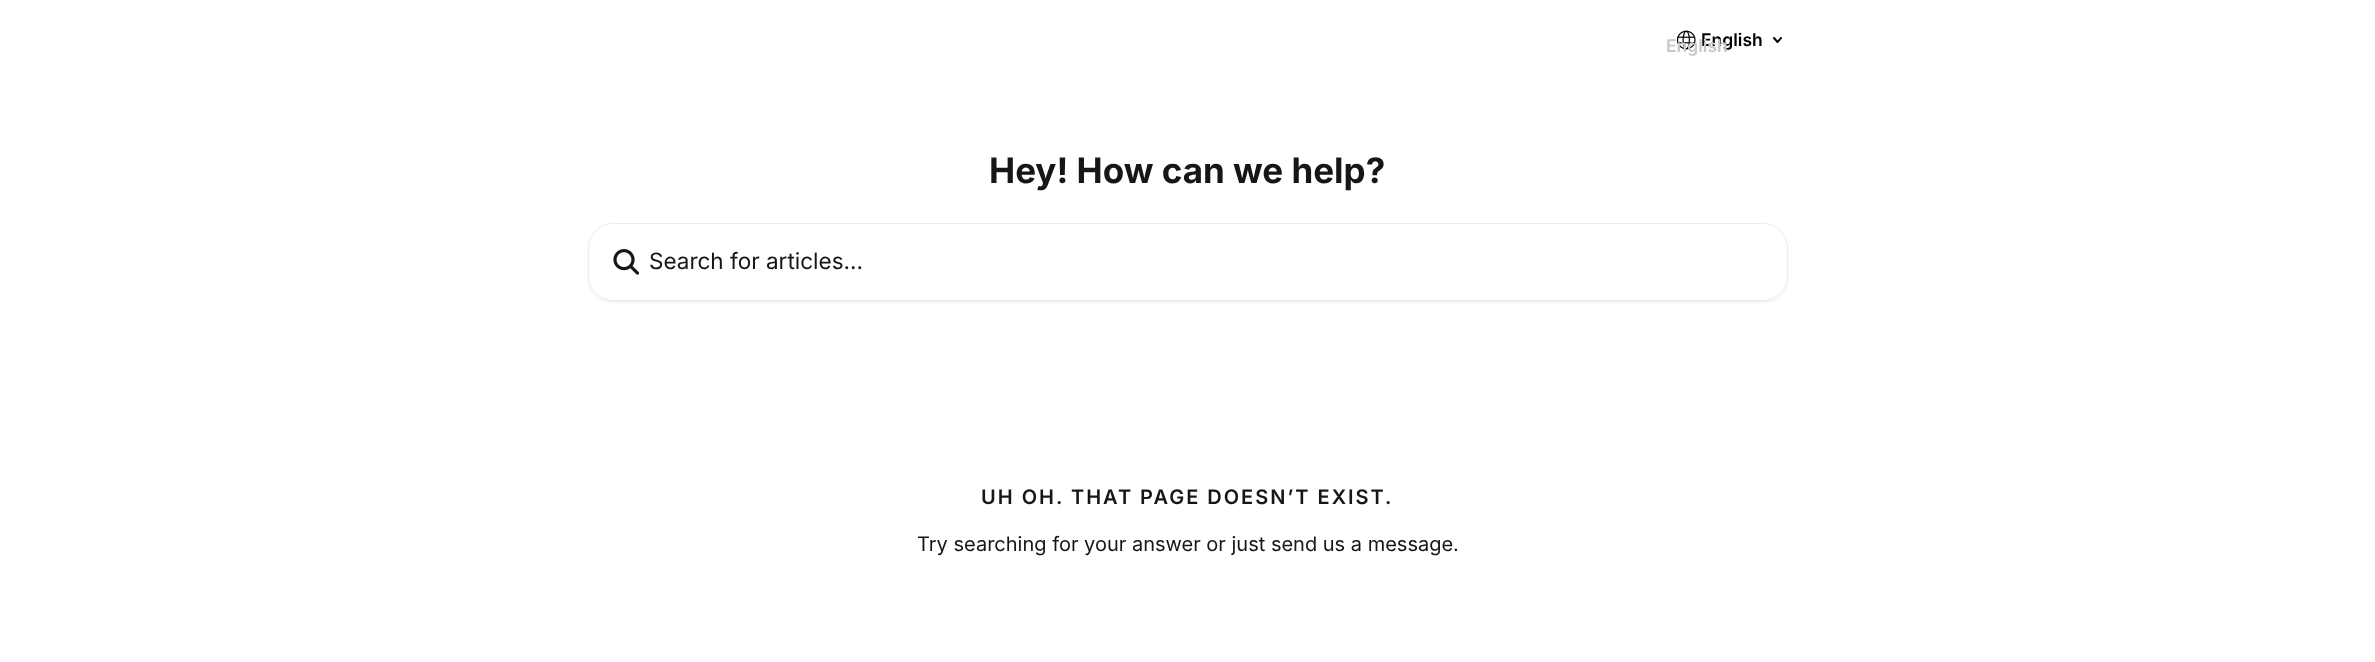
<svg xmlns="http://www.w3.org/2000/svg" width="2375" height="662">
<defs>
<clipPath id="clip1"><path d="M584 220h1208v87h-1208zm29 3h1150c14 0 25 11 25 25v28c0 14-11 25-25 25h-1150c-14 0-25-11-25-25v-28c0-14 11-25 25-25z" clip-rule="evenodd"/></clipPath>
</defs>
<rect width="100%" height="100%" fill="#fff"/>
<image x="1676" y="30" width="20" height="20" href="media/1.png"/>
<text x="1701" y="46" style="font-family:Inter;font-size:17.5px;font-weight:600;fill:#000">English</text>
<text x="1666" y="52" style="font-family:Inter;font-size:17.5px;font-weight:600;fill:#c9c9c9">English</text>
<path d="M1774 38l3.5 4l3.5-4" fill="none" stroke="#000" stroke-width="1.9" stroke-linecap="round" stroke-linejoin="round"/>
<text x="989" y="183" style="font-family:Inter;font-size:35px;font-weight:bold;fill:#161519">Hey! How can we help?</text>
<g clip-path="url(#clip1)">
<rect x="588" y="224" width="1200" height="79" rx="25" fill="#0000000d" filter="blur(1px)"/>
</g>
<rect x="588.5" y="223.5" width="1199" height="77" rx="24.5" fill="none" stroke="#00000014"/>
<image x="613" y="249" width="27" height="26" href="media/2.png"/>
<text x="649" y="269" style="font-family:Inter;font-size:22.5px;fill:#161519">Search for articles...</text>
<text x="981" y="504" style="font-family:Inter;font-size:20px;font-weight:600;letter-spacing:2px;fill:#161519">UH OH. THAT PAGE DOESN’T EXIST.</text>
<text x="917" y="551" style="font-family:Inter;font-size:20px;fill:#161519">Try searching for your answer or just send us a message.</text>
</svg>
